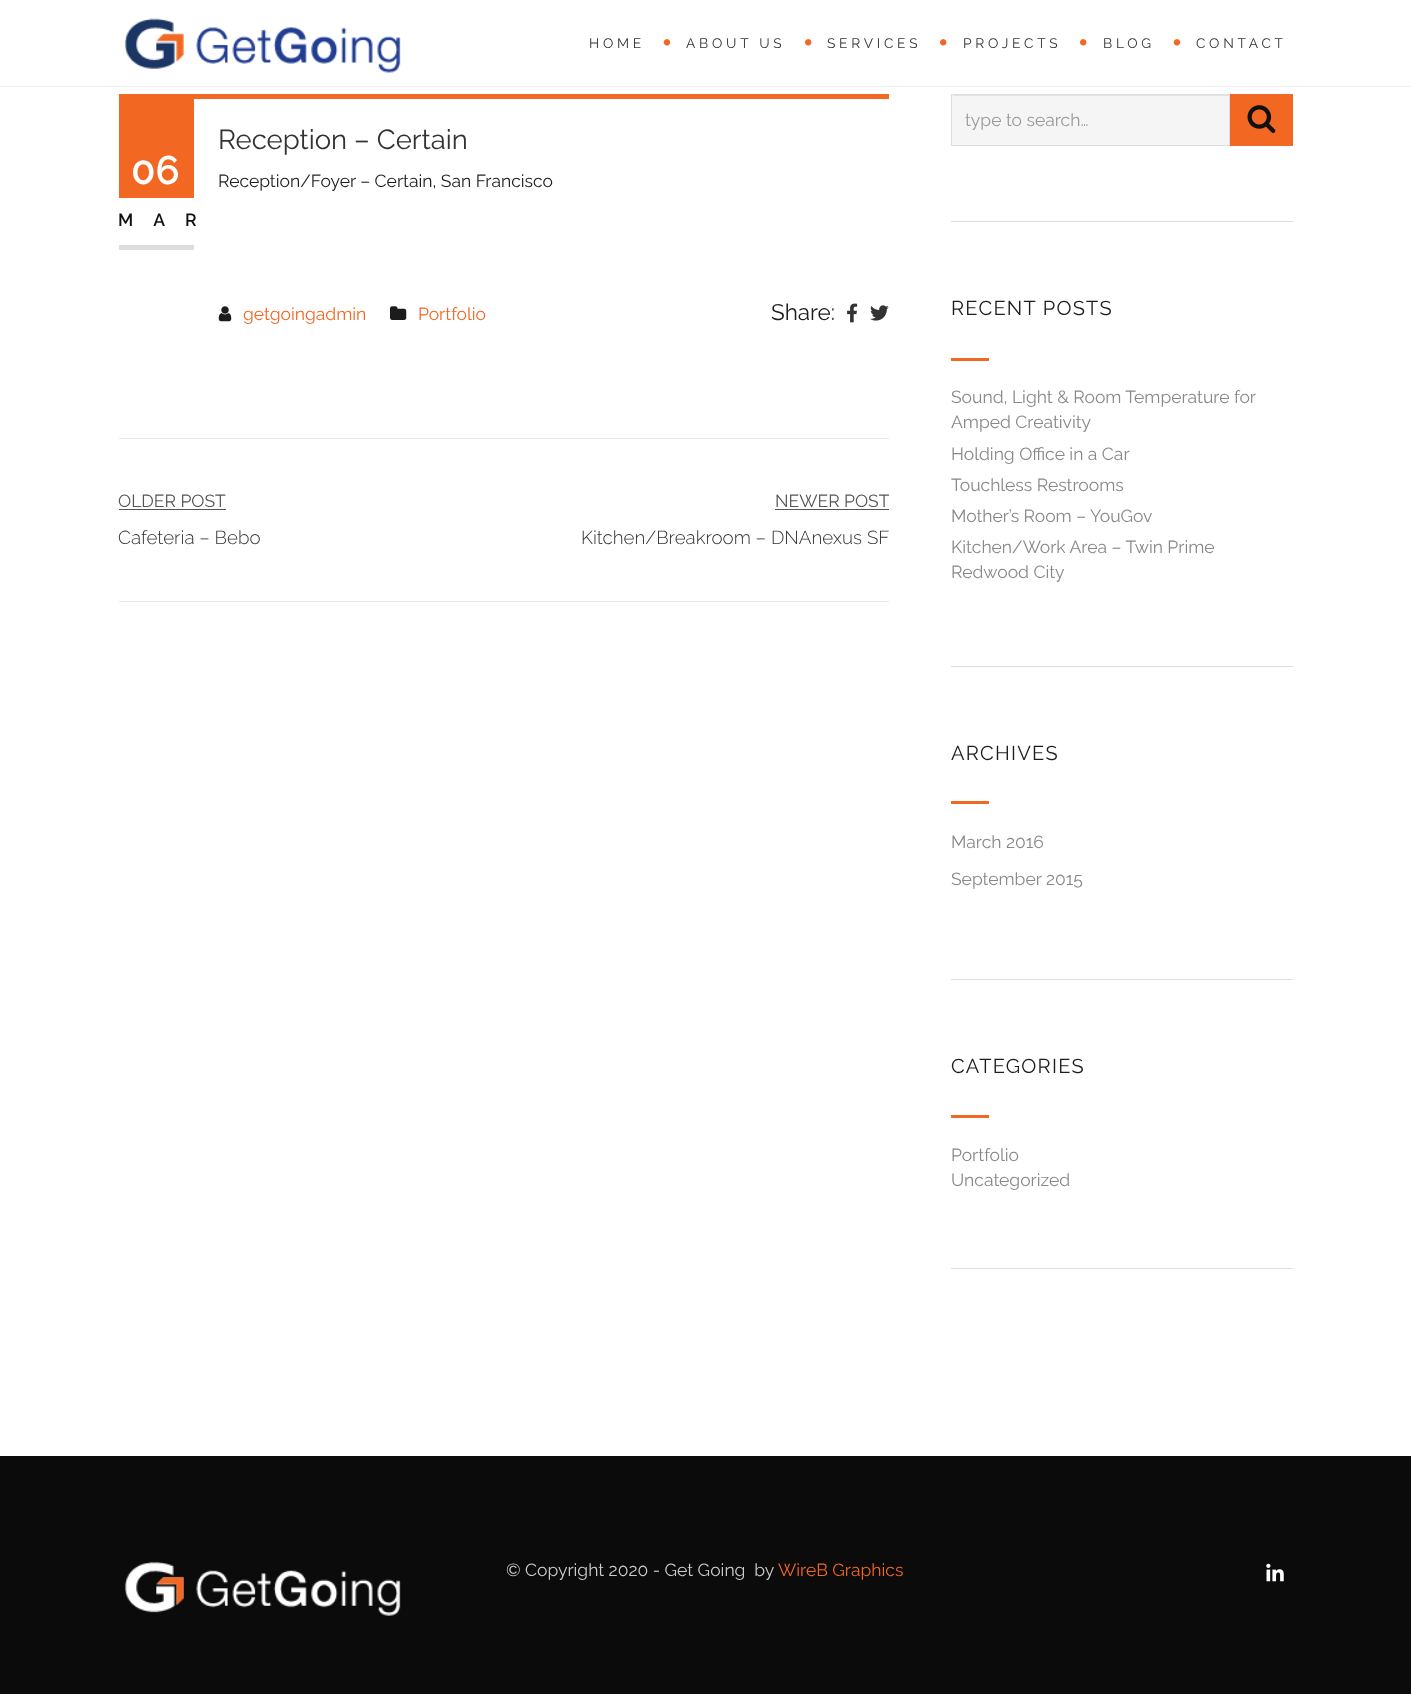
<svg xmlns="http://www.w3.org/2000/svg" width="1411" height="1694">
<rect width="100%" height="100%" fill="#fff"/>
<rect y="86" width="1411" height="1" fill="#eee"/>
<image x="124" y="18" width="277" height="55" href="media/1.png"/>
<text x="589" y="48" style="font-family:Raleway;font-size:13.75px;font-weight:100;letter-spacing:3.75px;fill:#333">HOME</text>
<image x="663" y="39" width="8" height="7" href="media/2.png"/>
<text x="686" y="48" style="font-family:Raleway;font-size:13.75px;font-weight:100;letter-spacing:3.75px;fill:#333">ABOUT US</text>
<image x="805" y="39" width="7" height="7" href="media/3.png"/>
<text x="827" y="48" style="font-family:Raleway;font-size:13.75px;font-weight:100;letter-spacing:3.75px;fill:#333">SERVICES</text>
<image x="940" y="39" width="7" height="7" href="media/3.png"/>
<text x="963" y="48" style="font-family:Raleway;font-size:13.75px;font-weight:100;letter-spacing:3.75px;fill:#333">PROJECTS</text>
<image x="1080" y="39" width="7" height="7" href="media/3.png"/>
<text x="1103" y="48" style="font-family:Raleway;font-size:13.75px;font-weight:100;letter-spacing:3.75px;fill:#333">BLOG</text>
<image x="1173" y="39" width="8" height="7" href="media/2.png"/>
<text x="1196" y="48" style="font-family:Raleway;font-size:13.75px;font-weight:100;letter-spacing:3.75px;fill:#333">CONTACT</text>
<rect x="119" y="94" width="770" height="5" fill="#f26722"/>
<rect x="119" y="99" width="75" height="99" fill="#f26722"/>
<text x="131" y="184" style="font-family:Raleway;font-size:40px;font-weight:600;fill:#fff">06</text>
<rect x="119" y="245" width="75" height="5" fill="#ddd"/>
<text x="118" y="226" style="font-family:Raleway;font-size:17.5px;font-weight:600;letter-spacing:20px;fill:#111">MAR</text>
<text x="218" y="149" style="font-family:Raleway;font-size:27.5px;font-weight:100;fill:#333">Reception – Certain</text>
<text x="218" y="187" style="font-family:Raleway;font-size:17.5px;font-weight:100;fill:#1c1c1c">Reception/Foyer – Certain, San Francisco</text>
<image x="218" y="306" width="14" height="16" href="media/4.png"/>
<text x="243" y="320" style="font-family:Raleway;font-size:17.5px;font-weight:100;fill:#f26722">getgoingadmin</text>
<image x="390" y="306" width="17" height="14" href="media/5.png"/>
<text x="418" y="320" style="font-family:Raleway;font-size:17.5px;font-weight:100;fill:#f26722">Portfolio</text>
<text x="771" y="320" style="font-family:Raleway;font-size:22.5px;font-weight:100;fill:#1c1c1c">Share:</text>
<image x="847" y="303" width="11" height="20" href="media/6.png"/>
<image x="870" y="305" width="19" height="16" href="media/7.png"/>
<rect x="119" y="438" width="770" height="1" fill="#e8eaec"/>
<rect x="119" y="601" width="770" height="1" fill="#e8eaec"/>
<text x="118" y="507" style="font-family:Raleway;font-size:17.5px;font-weight:100;fill:#555">OLDER POST</text>
<rect x="119" y="509" width="107" height="1" fill="#555"/>
<text x="118" y="544" style="font-family:Raleway;font-size:18.75px;font-weight:300;fill:#333">Cafeteria – Bebo</text>
<text x="775" y="507" style="font-family:Raleway;font-size:17.5px;font-weight:100;fill:#555">NEWER POST</text>
<rect x="775" y="509" width="114" height="1" fill="#555"/>
<text x="581" y="544" style="font-family:Raleway;font-size:18.75px;font-weight:300;fill:#333">Kitchen/Breakroom – DNAnexus SF</text>
<rect x="951" y="221" width="342" height="1" fill="#ddd"/>
<rect x="952" y="95" width="277" height="50" fill="#f5f5f5"/>
<rect x="953" y="95" width="276" height="1" fill="#e3e3e3"/>
<rect x="951.5" y="94.5" width="278" height="51" fill="none" stroke="#ddd"/>
<text x="965" y="126" style="font-family:Raleway;font-size:17.5px;font-weight:100;fill:#999">type to search…</text>
<rect x="1230" y="94" width="63" height="52" fill="#f26722"/>
<image x="1247" y="105" width="29" height="28" href="media/8.png"/>
<rect x="951" y="666" width="342" height="1" fill="#ddd"/>
<text x="951" y="315" style="font-family:Raleway;font-size:20px;font-weight:100;letter-spacing:1.25px;fill:#1c1c1c">RECENT POSTS</text>
<rect x="951" y="358" width="38" height="3" fill="#f26722"/>
<text x="951" y="403" style="font-family:Raleway;font-size:17.5px;font-weight:100;fill:#888">Sound, Light &amp; Room Temperature for</text>
<text x="951" y="428" style="font-family:Raleway;font-size:17.5px;font-weight:100;fill:#888">Amped Creativity</text>
<text x="951" y="460" style="font-family:Raleway;font-size:17.5px;font-weight:100;fill:#888">Holding Office in a Car</text>
<text x="951" y="491" style="font-family:Raleway;font-size:17.5px;font-weight:100;fill:#888">Touchless Restrooms</text>
<text x="951" y="522" style="font-family:Raleway;font-size:17.5px;font-weight:100;fill:#888">Mother’s Room – YouGov</text>
<text x="951" y="553" style="font-family:Raleway;font-size:17.5px;font-weight:100;fill:#888">Kitchen/Work Area – Twin Prime</text>
<text x="951" y="578" style="font-family:Raleway;font-size:17.5px;font-weight:100;fill:#888">Redwood City</text>
<rect x="951" y="979" width="342" height="1" fill="#ddd"/>
<text x="951" y="760" style="font-family:Raleway;font-size:20px;font-weight:100;letter-spacing:1.25px;fill:#1c1c1c">ARCHIVES</text>
<rect x="951" y="801" width="38" height="3" fill="#f26722"/>
<text x="951" y="848" style="font-family:Raleway;font-size:17.5px;font-weight:100;fill:#888">March 2016</text>
<text x="951" y="885" style="font-family:Raleway;font-size:17.5px;font-weight:100;fill:#888">September 2015</text>
<rect x="951" y="1268" width="342" height="1" fill="#ddd"/>
<text x="951" y="1073" style="font-family:Raleway;font-size:20px;font-weight:100;letter-spacing:1.25px;fill:#1c1c1c">CATEGORIES</text>
<rect x="951" y="1115" width="38" height="3" fill="#f26722"/>
<text x="951" y="1161" style="font-family:Raleway;font-size:17.5px;font-weight:100;fill:#888">Portfolio</text>
<text x="951" y="1186" style="font-family:Raleway;font-size:17.5px;font-weight:100;fill:#888">Uncategorized</text>
<rect y="1456" width="1411" height="238" fill="#0b0b0b"/>
<image x="124" y="1561" width="277" height="55" href="media/9.png"/>
<text x="506" y="1576" style="font-family:Raleway;font-size:17.5px;font-weight:100;fill:#ccc" xml:space="preserve">© Copyright 2020 - Get Going  by</text>
<text x="778" y="1576" style="font-family:Raleway;font-size:17.5px;font-weight:100;fill:#f26722">WireB Graphics</text>
<image x="1266" y="1563" width="18" height="19" href="media/10.png"/>
</svg>
